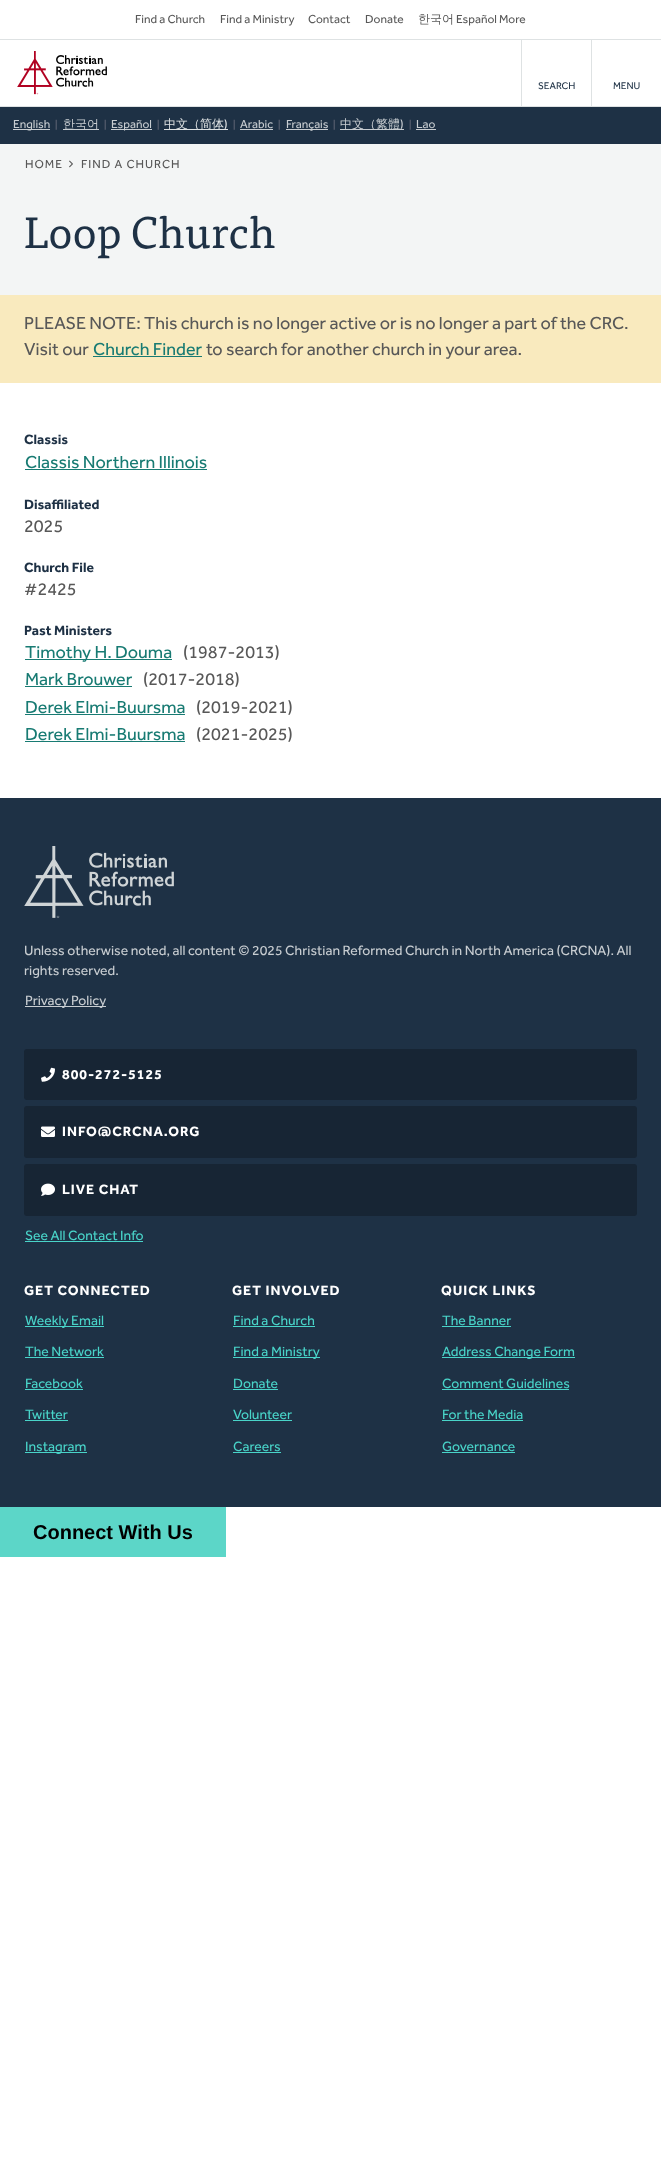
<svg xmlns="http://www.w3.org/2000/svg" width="661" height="2175">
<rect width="100%" height="100%" fill="#fff"/>
<rect y="106" width="661" height="1" fill="#dee2e3"/>
<rect y="39" width="661" height="1" fill="#dee2e3"/>
<text x="135" y="23" style="font-family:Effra;font-size:12px;fill:#585858">Find a Church</text>
<text x="220" y="23" style="font-family:Effra;font-size:12px;fill:#585858">Find a Ministry</text>
<text x="308" y="23" style="font-family:Effra;font-size:12px;fill:#585858">Contact</text>
<text x="365" y="23" style="font-family:Effra;font-size:12px;fill:#585858">Donate</text>
<text x="418" y="23" style="font-family:WenQuanYi Zen Hei;font-size:12px;font-weight:500;fill:#585858">한국어</text>
<text x="456" y="23" style="font-family:Effra;font-size:12px;fill:#585858">Español More</text>
<image x="17" y="51" width="90" height="44" href="media/1.png"/>
<rect x="521" y="40" width="1" height="66" fill="#dee2e3"/>
<text x="538" y="89" style="font-family:Effra;font-size:10px;fill:#1e3145">SEARCH</text>
<rect x="591" y="40" width="1" height="66" fill="#dee2e3"/>
<text x="613" y="89" style="font-family:Effra;font-size:10px;fill:#1e3145">MENU</text>
<rect y="107" width="661" height="37" fill="#1e3145"/>
<rect x="13" y="129" width="37" height="1" fill="#c8cdd1"/>
<text x="13" y="128" style="font-family:Effra;font-size:12px;fill:#c8cdd1">English</text>
<text x="55" y="128" style="font-family:Effra;font-size:10px;fill:#6a6f7c">|</text>
<rect x="63" y="129" width="36" height="1" fill="#c8cdd1"/>
<text x="63" y="128" style="font-family:WenQuanYi Zen Hei;font-size:12px;font-weight:500;fill:#c8cdd1">한국어</text>
<text x="104" y="128" style="font-family:Effra;font-size:10px;fill:#6a6f7c">|</text>
<rect x="111" y="129" width="41" height="1" fill="#c8cdd1"/>
<text x="111" y="128" style="font-family:Effra;font-size:12px;fill:#c8cdd1">Español</text>
<text x="157" y="128" style="font-family:Effra;font-size:10px;fill:#6a6f7c">|</text>
<rect x="164" y="129" width="64" height="1" fill="#dee2e3"/>
<text x="164" y="128" style="font-family:WenQuanYi Zen Hei;font-size:12px;font-weight:500;fill:#dee2e3">中文（简体</text>
<text x="224" y="128" style="font-family:Effra;font-size:12px;fill:#dee2e3">)</text>
<text x="233" y="128" style="font-family:Effra;font-size:10px;fill:#6a6f7c">|</text>
<text x="240" y="128" style="font-family:Effra;font-size:12px;fill:#c8cdd1">Arabic</text>
<rect x="240" y="129" width="33" height="1" fill="#c8cdd1"/>
<text x="278" y="128" style="font-family:Effra;font-size:10px;fill:#6a6f7c">|</text>
<rect x="286" y="129" width="42" height="1" fill="#c8cdd1"/>
<text x="286" y="128" style="font-family:Effra;font-size:12px;fill:#c8cdd1">Français</text>
<text x="333" y="128" style="font-family:Effra;font-size:10px;fill:#6a6f7c">|</text>
<rect x="340" y="129" width="64" height="1" fill="#c8cdd1"/>
<text x="340" y="128" style="font-family:WenQuanYi Zen Hei;font-size:12px;font-weight:500;fill:#c8cdd1">中文（繁體</text>
<text x="400" y="128" style="font-family:Effra;font-size:12px;fill:#c8cdd1">)</text>
<text x="409" y="128" style="font-family:Effra;font-size:10px;fill:#6a6f7c">|</text>
<text x="416" y="128" style="font-family:Effra;font-size:12px;fill:#c8cdd1">Lao</text>
<rect x="416" y="129" width="20" height="1" fill="#c8cdd1"/>
<rect y="144" width="661" height="151" fill="#f3f5f5"/>
<text x="25" y="168" style="font-family:Effra;font-size:12px;letter-spacing:1px;fill:#585858">HOME</text>
<image x="69" y="160" width="4" height="8" href="media/2.png"/>
<text x="81" y="168" style="font-family:Effra;font-size:12px;letter-spacing:1px;fill:#585858">FIND A CHURCH</text>
<text x="24" y="248" style="font-family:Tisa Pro;font-size:44px;fill:#1e3145">Loop Church</text>
<rect y="295" width="661" height="88" fill="#f9eabe"/>
<text x="24" y="329" style="font-family:Effra;font-size:18px;fill:#585858">PLEASE NOTE: This church is no longer active or is no longer a part of the CRC.</text>
<text x="24" y="355" style="font-family:Effra;font-size:18px;fill:#585858">Visit our</text>
<text x="93" y="355" style="font-family:Effra;font-size:18px;fill:#187b73">Church Finder</text>
<rect x="93" y="356" width="109" height="1" fill="#187b73"/>
<text x="206" y="355" style="font-family:Effra;font-size:18px;fill:#585858">to search for another church in your area.</text>
<text x="24" y="444" style="font-family:Effra;font-size:14px;font-weight:bold;fill:#1e3145">Classis</text>
<text x="25" y="468" style="font-family:Effra;font-size:18px;fill:#187b73">Classis Northern Illinois</text>
<rect x="25" y="469" width="182" height="1" fill="#187b73"/>
<text x="24" y="509" style="font-family:Effra;font-size:14px;font-weight:bold;fill:#1e3145">Disaffiliated</text>
<text x="24" y="532" style="font-family:Effra;font-size:18px;fill:#585858">2025</text>
<text x="24" y="572" style="font-family:Effra;font-size:14px;font-weight:bold;fill:#1e3145">Church File</text>
<text x="24" y="595" style="font-family:Effra;font-size:18px;fill:#585858">#2425</text>
<text x="24" y="635" style="font-family:Effra;font-size:14px;font-weight:bold;fill:#1e3145">Past Ministers</text>
<rect x="25" y="659" width="147" height="1" fill="#187b73"/>
<text x="25" y="658" style="font-family:Effra;font-size:18px;fill:#187b73">Timothy H. Douma</text>
<text x="183" y="658" style="font-family:Effra;font-size:18px;fill:#585858">(1987-2013)</text>
<text x="25" y="685" style="font-family:Effra;font-size:18px;fill:#187b73">Mark Brouwer</text>
<rect x="25" y="686" width="107" height="1" fill="#187b73"/>
<text x="143" y="685" style="font-family:Effra;font-size:18px;fill:#585858">(2017-2018)</text>
<text x="25" y="713" style="font-family:Effra;font-size:18px;fill:#187b73">Derek Elmi-Buursma</text>
<rect x="25" y="714" width="160" height="1" fill="#187b73"/>
<text x="196" y="713" style="font-family:Effra;font-size:18px;fill:#585858">(2019-2021)</text>
<text x="25" y="740" style="font-family:Effra;font-size:18px;fill:#187b73">Derek Elmi-Buursma</text>
<rect x="25" y="741" width="160" height="1" fill="#187b73"/>
<text x="196" y="740" style="font-family:Effra;font-size:18px;fill:#585858">(2021-2025)</text>
<rect y="798" width="661" height="709" fill="#1e3145"/>
<image x="24" y="846" width="150" height="72" href="media/3.png"/>
<text x="24" y="955" style="font-family:Effra;font-size:14px;fill:#c8cdd1">Unless otherwise noted, all content © 2025 Christian Reformed Church in North America (CRCNA). All</text>
<text x="24" y="975" style="font-family:Effra;font-size:14px;fill:#c8cdd1">rights reserved.</text>
<rect x="25" y="1006" width="81" height="1" fill="#c8cdd1"/>
<text x="25" y="1005" style="font-family:Effra;font-size:14px;fill:#c8cdd1">Privacy Policy</text>
<rect x="24" y="1049" width="613" height="51" rx="3" fill="#172534"/>
<image x="41" y="1067" width="14" height="15" href="media/4.png"/>
<text x="62" y="1079" style="font-family:Effra;font-size:14px;font-weight:bold;letter-spacing:1px;fill:#fff">800-272-5125</text>
<rect x="24" y="1106" width="613" height="52" rx="3" fill="#172534"/>
<image x="41" y="1126" width="14" height="11" href="media/5.png"/>
<text x="62" y="1136" style="font-family:Effra;font-size:14px;font-weight:bold;letter-spacing:1px;fill:#fff">INFO@CRCNA.ORG</text>
<rect x="24" y="1164" width="613" height="52" rx="3" fill="#172534"/>
<image x="41" y="1183" width="14" height="13" href="media/6.png"/>
<text x="62" y="1194" style="font-family:Effra;font-size:14px;font-weight:bold;letter-spacing:1px;fill:#fff">LIVE CHAT</text>
<text x="25" y="1240" style="font-family:Effra;font-size:14px;fill:#49d4c9">See All Contact Info</text>
<rect x="25" y="1241" width="118" height="1" fill="#49d4c9"/>
<text x="24" y="1295" style="font-family:Effra;font-size:14px;font-weight:bold;letter-spacing:1px;fill:#fff">GET CONNECTED</text>
<rect x="25" y="1326" width="79" height="1" fill="#49d4c9"/>
<text x="25" y="1325" style="font-family:Effra;font-size:14px;fill:#49d4c9">Weekly Email</text>
<text x="25" y="1356" style="font-family:Effra;font-size:14px;fill:#49d4c9">The Network</text>
<rect x="25" y="1357" width="79" height="1" fill="#49d4c9"/>
<text x="25" y="1388" style="font-family:Effra;font-size:14px;fill:#49d4c9">Facebook</text>
<rect x="25" y="1389" width="58" height="1" fill="#49d4c9"/>
<text x="25" y="1419" style="font-family:Effra;font-size:14px;fill:#49d4c9">Twitter</text>
<rect x="25" y="1420" width="43" height="1" fill="#49d4c9"/>
<rect x="25" y="1452" width="62" height="1" fill="#49d4c9"/>
<text x="25" y="1451" style="font-family:Effra;font-size:14px;fill:#49d4c9">Instagram</text>
<text x="232" y="1295" style="font-family:Effra;font-size:14px;font-weight:bold;letter-spacing:1px;fill:#fff">GET INVOLVED</text>
<text x="233" y="1325" style="font-family:Effra;font-size:14px;fill:#49d4c9">Find a Church</text>
<rect x="233" y="1326" width="82" height="1" fill="#49d4c9"/>
<rect x="233" y="1357" width="87" height="1" fill="#49d4c9"/>
<text x="233" y="1356" style="font-family:Effra;font-size:14px;fill:#49d4c9">Find a Ministry</text>
<text x="233" y="1388" style="font-family:Effra;font-size:14px;fill:#49d4c9">Donate</text>
<rect x="233" y="1389" width="45" height="1" fill="#49d4c9"/>
<text x="233" y="1419" style="font-family:Effra;font-size:14px;fill:#49d4c9">Volunteer</text>
<rect x="233" y="1420" width="59" height="1" fill="#49d4c9"/>
<text x="233" y="1451" style="font-family:Effra;font-size:14px;fill:#49d4c9">Careers</text>
<rect x="233" y="1452" width="48" height="1" fill="#49d4c9"/>
<text x="441" y="1295" style="font-family:Effra;font-size:14px;font-weight:bold;letter-spacing:1px;fill:#fff">QUICK LINKS</text>
<text x="442" y="1325" style="font-family:Effra;font-size:14px;fill:#49d4c9">The Banner</text>
<rect x="442" y="1326" width="69" height="1" fill="#49d4c9"/>
<rect x="442" y="1357" width="133" height="1" fill="#49d4c9"/>
<text x="442" y="1356" style="font-family:Effra;font-size:14px;fill:#49d4c9">Address Change Form</text>
<text x="442" y="1388" style="font-family:Effra;font-size:14px;fill:#49d4c9">Comment Guidelines</text>
<rect x="442" y="1389" width="127" height="1" fill="#49d4c9"/>
<text x="442" y="1419" style="font-family:Effra;font-size:14px;fill:#49d4c9">For the Media</text>
<rect x="442" y="1420" width="81" height="1" fill="#49d4c9"/>
<text x="442" y="1451" style="font-family:Effra;font-size:14px;fill:#49d4c9">Governance</text>
<rect x="442" y="1452" width="73" height="1" fill="#49d4c9"/>
<rect y="1507" width="226" height="50" fill="#5cd6c8"/>
<text x="33" y="1539" style="font-family:Liberation Sans;font-size:20px;font-weight:bold;fill:#000">Connect With Us</text>
</svg>
